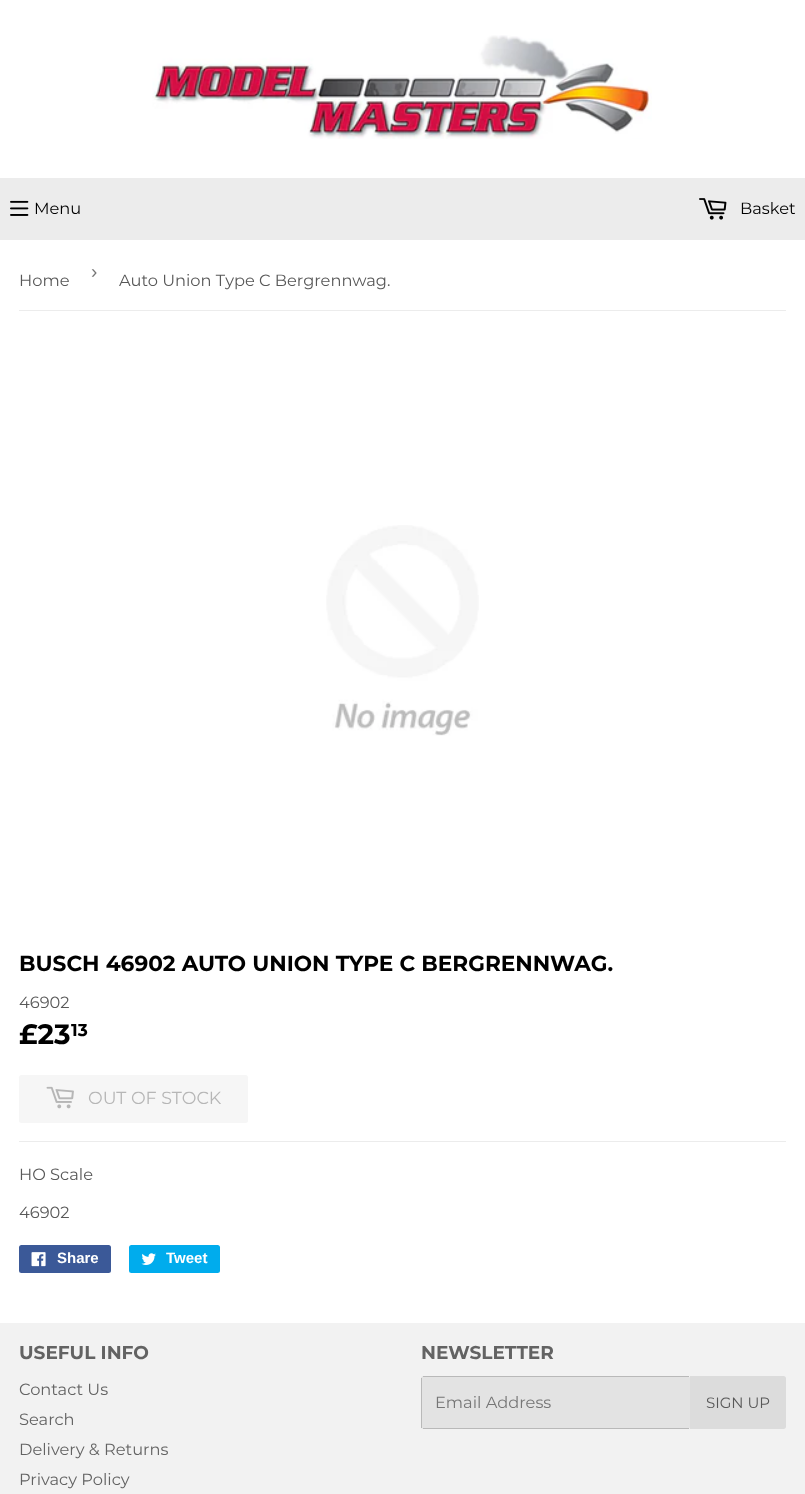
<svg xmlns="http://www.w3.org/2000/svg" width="805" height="1494">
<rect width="100%" height="100%" fill="#fff"/>
<image x="152" y="35" width="500" height="104" href="media/1.png"/>
<rect y="178" width="805" height="62" fill="#ececec"/>
<image x="10" y="200" width="19" height="16" href="media/2.png"/>
<text x="34" y="214" style="font-family:Montserrat;font-size:16.25px;fill:#000">Menu</text>
<image x="699" y="198" width="28" height="22" href="media/3.png"/>
<text x="740" y="214" style="font-family:Montserrat;font-size:16.25px;fill:#000">Basket</text>
<rect x="19" y="310" width="767" height="1" fill="#ececec"/>
<text x="19" y="286" style="font-family:Montserrat;font-size:16.25px;fill:#585858">Home</text>
<text x="91" y="278" style="font-family:Liberation Sans;font-size:19px;fill:#767676">›</text>
<text x="119" y="286" style="font-family:Montserrat;font-size:16.25px;fill:#585858">Auto Union Type C Bergrennwag.</text>
<image x="326" y="525" width="153" height="211" href="media/4.png"/>
<text x="19" y="971" style="font-family:Montserrat;font-size:21.65px;font-weight:bold;fill:#000">BUSCH 46902 AUTO UNION TYPE C BERGRENNWAG.</text>
<text x="19" y="1008" style="font-family:Montserrat;font-size:16.25px;fill:#585858">46902</text>
<text x="19" y="1044" style="font-family:Montserrat;font-size:28px;font-weight:bold;fill:#000">£23</text>
<text x="71" y="1036" style="font-family:Montserrat;font-size:17px;font-weight:bold;fill:#000">13</text>
<rect x="19" y="1075" width="229" height="48" rx="2.5" fill="#f6f6f6"/>
<image x="46" y="1086" width="28" height="23" href="media/5.png"/>
<text x="88" y="1104" style="font-family:Montserrat;font-size:17.5px;fill:#b6b6b6">OUT OF STOCK</text>
<rect x="19" y="1141" width="767" height="1" fill="#ececec"/>
<text x="19" y="1180" style="font-family:Montserrat;font-size:16.25px;fill:#585858">HO Scale</text>
<text x="19" y="1218" style="font-family:Montserrat;font-size:16.25px;fill:#585858">46902</text>
<rect x="19" y="1245" width="92" height="28" rx="2.5" fill="#3b5998"/>
<image x="31" y="1252" width="15" height="15" href="media/6.png"/>
<text x="57" y="1263" style="font-family:Liberation Sans;font-size:15px;font-weight:bold;fill:#fff">Share</text>
<rect x="129" y="1245" width="91" height="28" rx="2.5" fill="#00aced"/>
<image x="141" y="1253" width="15" height="12" href="media/7.png"/>
<text x="166" y="1263" style="font-family:Liberation Sans;font-size:15px;font-weight:bold;fill:#fff">Tweet</text>
<rect y="1323" width="805" height="171" fill="#f2f2f2"/>
<text x="19" y="1359" style="font-family:Montserrat;font-size:18.5px;font-weight:bold;fill:#636363">USEFUL INFO</text>
<text x="19" y="1395" style="font-family:Montserrat;font-size:16.25px;fill:#636363">Contact Us</text>
<text x="19" y="1425" style="font-family:Montserrat;font-size:16.25px;fill:#636363">Search</text>
<text x="19" y="1455" style="font-family:Montserrat;font-size:16.25px;fill:#636363">Delivery &amp; Returns</text>
<text x="19" y="1485" style="font-family:Montserrat;font-size:16.25px;fill:#636363">Privacy Policy</text>
<text x="421" y="1359" style="font-family:Montserrat;font-size:18.5px;font-weight:bold;fill:#636363">NEWSLETTER</text>
<rect x="421" y="1376" width="269" height="53" rx="2.5" fill="#e3e3e3"/>
<rect x="423" y="1376" width="266" height="1" fill="#b9b9b9"/>
<rect x="423" y="1428" width="266" height="1" fill="#b9b9b9"/>
<rect x="421" y="1378" width="1" height="50" fill="#b9b9b9"/>
<text x="435" y="1408" style="font-family:Montserrat;font-size:16.25px;fill:#767676">Email Address</text>
<path d="M690 1376h93.5c1.5 0 2.5 1 2.5 2.5v48c0 1.5-1 2.5-2.5 2.5h-93.5z" fill="#dcdcdc"/>
<text x="706" y="1408" style="font-family:Montserrat;font-size:15px;fill:#585858">SIGN UP</text>
</svg>
